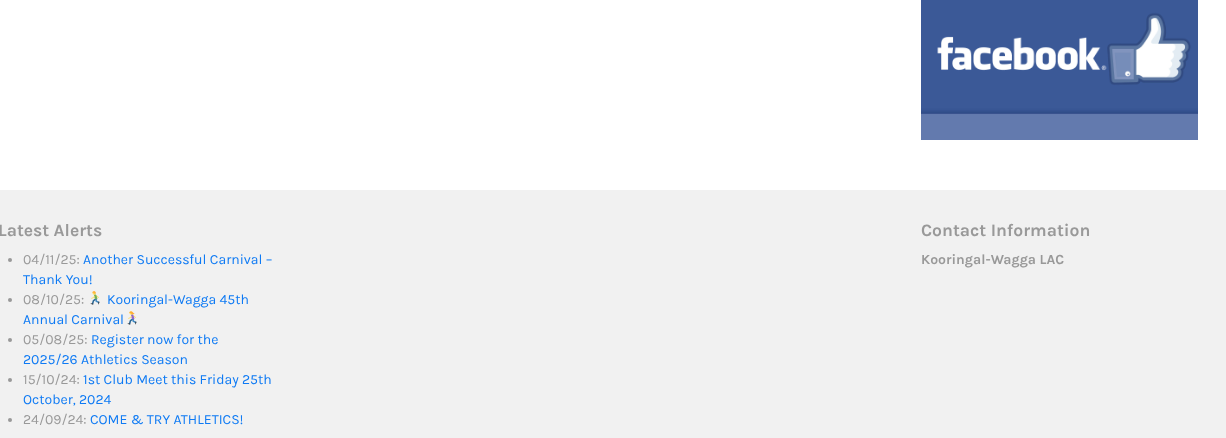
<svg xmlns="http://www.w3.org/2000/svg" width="1226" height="438">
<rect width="100%" height="100%" fill="#fff"/>
<image x="921" y="0" width="277" height="140" href="media/1.png"/>
<rect y="190" width="1226" height="248" fill="#f1f1f1"/>
<text x="-2" y="236" style="font-family:Karla;font-size:17.5px;font-weight:bold;fill:#999">Latest Alerts</text>
<circle cx="10" cy="260" r="2" fill="#999"/>
<text x="23" y="264" style="font-family:Karla;font-size:14px;fill:#999">04/11/25:</text>
<text x="83" y="264" style="font-family:Karla;font-size:14px;fill:#0e7af4">Another Successful Carnival –</text>
<text x="23" y="284" style="font-family:Karla;font-size:14px;fill:#0e7af4">Thank You!</text>
<circle cx="10" cy="300" r="2" fill="#999"/>
<text x="23" y="304" style="font-family:Karla;font-size:14px;fill:#999">08/10/25:</text>
<image x="90" y="291" width="10" height="14" href="media/2.png"/>
<text x="107" y="304" style="font-family:Karla;font-size:14px;fill:#0e7af4">Kooringal-Wagga 45th</text>
<text x="23" y="324" style="font-family:Karla;font-size:14px;fill:#0e7af4">Annual Carnival</text>
<image x="127" y="311" width="10" height="14" href="media/3.png"/>
<circle cx="10" cy="340" r="2" fill="#999"/>
<text x="23" y="344" style="font-family:Karla;font-size:14px;fill:#999">05/08/25:</text>
<text x="91" y="344" style="font-family:Karla;font-size:14px;fill:#0e7af4">Register now for the</text>
<text x="23" y="364" style="font-family:Karla;font-size:14px;fill:#0e7af4">2025/26 Athletics Season</text>
<circle cx="10" cy="380" r="2" fill="#999"/>
<text x="23" y="384" style="font-family:Karla;font-size:14px;fill:#999">15/10/24:</text>
<text x="83" y="384" style="font-family:Karla;font-size:14px;fill:#0e7af4">1st Club Meet this Friday 25th</text>
<text x="23" y="404" style="font-family:Karla;font-size:14px;fill:#0e7af4">October, 2024</text>
<circle cx="10" cy="420" r="2" fill="#999"/>
<text x="23" y="424" style="font-family:Karla;font-size:14px;fill:#999">24/09/24:</text>
<text x="90" y="424" style="font-family:Karla;font-size:14px;fill:#0e7af4">COME &amp; TRY ATHLETICS!</text>
<text x="921" y="236" style="font-family:Karla;font-size:17.5px;font-weight:bold;fill:#999">Contact Information</text>
<text x="921" y="264" style="font-family:Karla;font-size:14px;font-weight:bold;fill:#999">Kooringal-Wagga LAC</text>
</svg>
